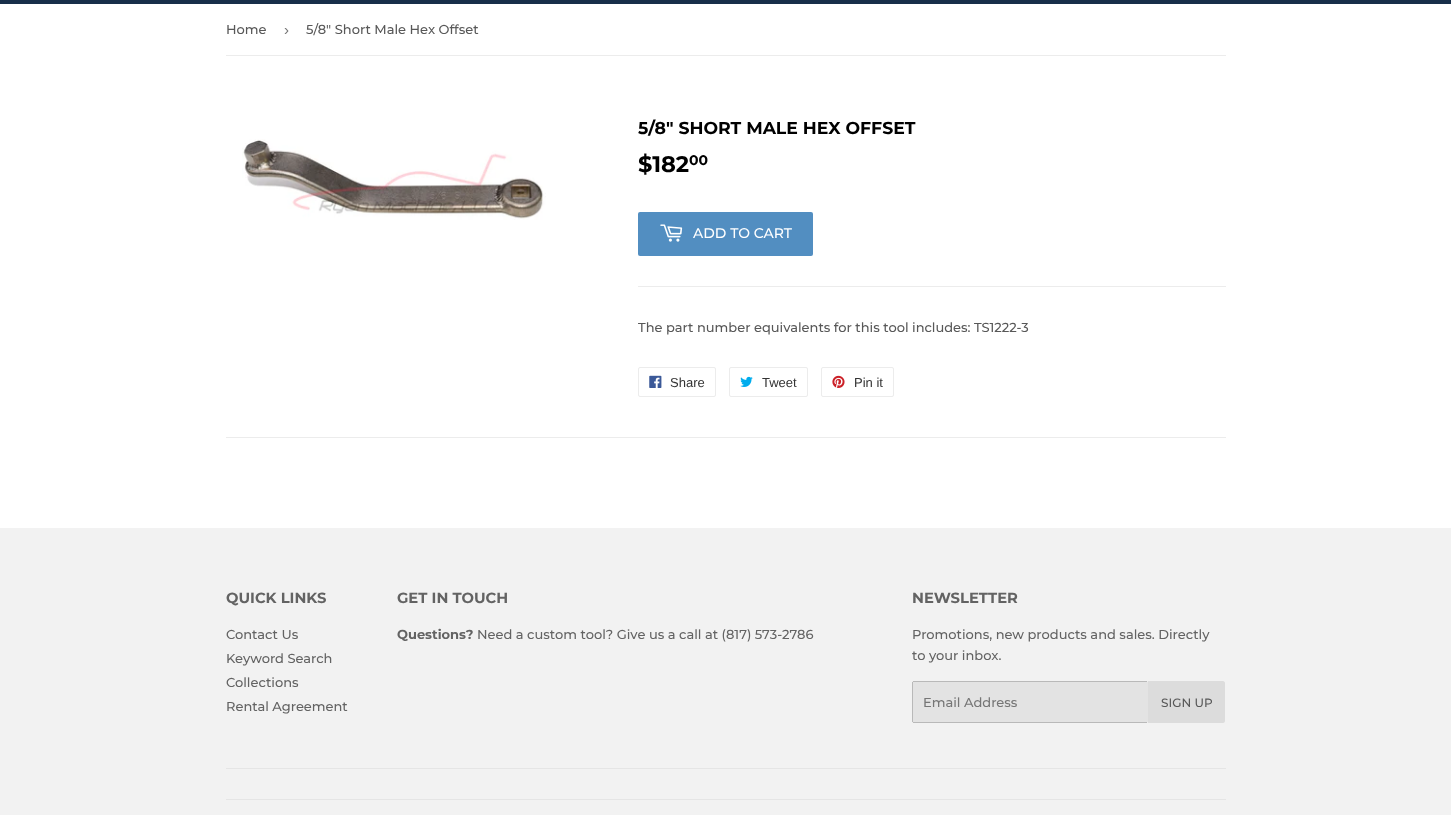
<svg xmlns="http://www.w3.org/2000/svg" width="1451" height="815">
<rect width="100%" height="100%" fill="#fff"/>
<rect width="1451" height="4" fill="#182e49"/>
<rect x="226" y="55" width="1000" height="1" fill="#ececec"/>
<text x="226" y="34" style="font-family:Montserrat;font-size:13px;font-weight:500;fill:#585858">Home</text>
<text x="284" y="35" style="font-family:Liberation Sans;font-size:15px;fill:#767676">›</text>
<text x="306" y="34" style="font-family:Montserrat;font-size:13px;font-weight:500;fill:#585858">5/8" Short Male Hex Offset</text>
<image x="242" y="139" width="304" height="81" href="media/1.png"/>
<text x="638" y="134" style="font-family:Montserrat;font-size:17.3px;font-weight:bold;fill:#000">5/8" SHORT MALE HEX OFFSET</text>
<text x="638" y="172" style="font-family:Montserrat;font-size:22.5px;font-weight:bold;fill:#000">$182</text>
<text x="689" y="165" style="font-family:Montserrat;font-size:14px;font-weight:bold;fill:#000">00</text>
<rect x="638" y="212" width="175" height="44" rx="2" fill="#528ec1"/>
<image x="660" y="224" width="23" height="18" href="media/2.png"/>
<text x="693" y="238" style="font-family:Montserrat;font-size:14px;font-weight:500;fill:#fff">ADD TO CART</text>
<rect x="638" y="286" width="588" height="1" fill="#ececec"/>
<text x="638" y="332" style="font-family:Montserrat;font-size:13px;font-weight:500;fill:#585858">The part number equivalents for this tool includes: TS1222-3</text>
<rect x="638.5" y="367.5" width="77" height="29" rx="1.5" fill="none" stroke="#ececec"/>
<image x="649" y="375" width="13" height="13" href="media/3.png"/>
<text x="670" y="387" style="font-family:Liberation Sans;font-size:13px;fill:#333">Share</text>
<rect x="729.5" y="367.5" width="78" height="29" rx="1.5" fill="none" stroke="#ececec"/>
<image x="740" y="376" width="13" height="11" href="media/4.png"/>
<text x="762" y="387" style="font-family:Liberation Sans;font-size:13px;fill:#333">Tweet</text>
<rect x="821.5" y="367.5" width="72" height="29" rx="1.5" fill="none" stroke="#ececec"/>
<image x="832" y="375" width="13" height="13" href="media/5.png"/>
<text x="854" y="387" style="font-family:Liberation Sans;font-size:13px;fill:#333">Pin it</text>
<rect x="226" y="437" width="1000" height="1" fill="#ececec"/>
<rect y="528" width="1451" height="287" fill="#f2f2f2"/>
<text x="226" y="603" style="font-family:Montserrat;font-size:14.75px;font-weight:bold;fill:#636363">QUICK LINKS</text>
<text x="226" y="639" style="font-family:Montserrat;font-size:13px;font-weight:500;fill:#636363">Contact Us</text>
<text x="226" y="663" style="font-family:Montserrat;font-size:13px;font-weight:500;fill:#636363">Keyword Search</text>
<text x="226" y="687" style="font-family:Montserrat;font-size:13px;font-weight:500;fill:#636363">Collections</text>
<text x="226" y="711" style="font-family:Montserrat;font-size:13px;font-weight:500;fill:#636363">Rental Agreement</text>
<text x="397" y="603" style="font-family:Montserrat;font-size:14.75px;font-weight:bold;fill:#636363">GET IN TOUCH</text>
<text x="397" y="639" style="font-family:Montserrat;font-size:13px;font-weight:bold;fill:#636363">Questions?</text>
<text x="477" y="639" style="font-family:Montserrat;font-size:13px;font-weight:500;fill:#636363">Need a custom tool? Give us a call at (817) 573-2786</text>
<text x="912" y="603" style="font-family:Montserrat;font-size:14.75px;font-weight:bold;fill:#636363">NEWSLETTER</text>
<text x="912" y="639" style="font-family:Montserrat;font-size:13px;font-weight:500;fill:#636363">Promotions, new products and sales. Directly</text>
<text x="912" y="660" style="font-family:Montserrat;font-size:13px;font-weight:500;fill:#636363">to your inbox.</text>
<rect x="912" y="681" width="236" height="42" rx="2" fill="#e3e3e3"/>
<rect x="913" y="681" width="234" height="1" fill="#b9b9b9"/>
<rect x="913" y="722" width="234" height="1" fill="#b9b9b9"/>
<rect x="912" y="682" width="1" height="40" fill="#b9b9b9"/>
<text x="923" y="707" style="font-family:Montserrat;font-size:13px;font-weight:500;fill:#767676">Email Address</text>
<path d="M1148 681h75c1 0 2 1 2 2v38c0 1-1 2-2 2h-75z" fill="#dcdcdc"/>
<text x="1161" y="707" style="font-family:Montserrat;font-size:12px;font-weight:500;fill:#585858">SIGN UP</text>
<rect x="226" y="768" width="1000" height="1" fill="#e5e5e5"/>
<rect x="226" y="799" width="1000" height="1" fill="#e5e5e5"/>
</svg>
